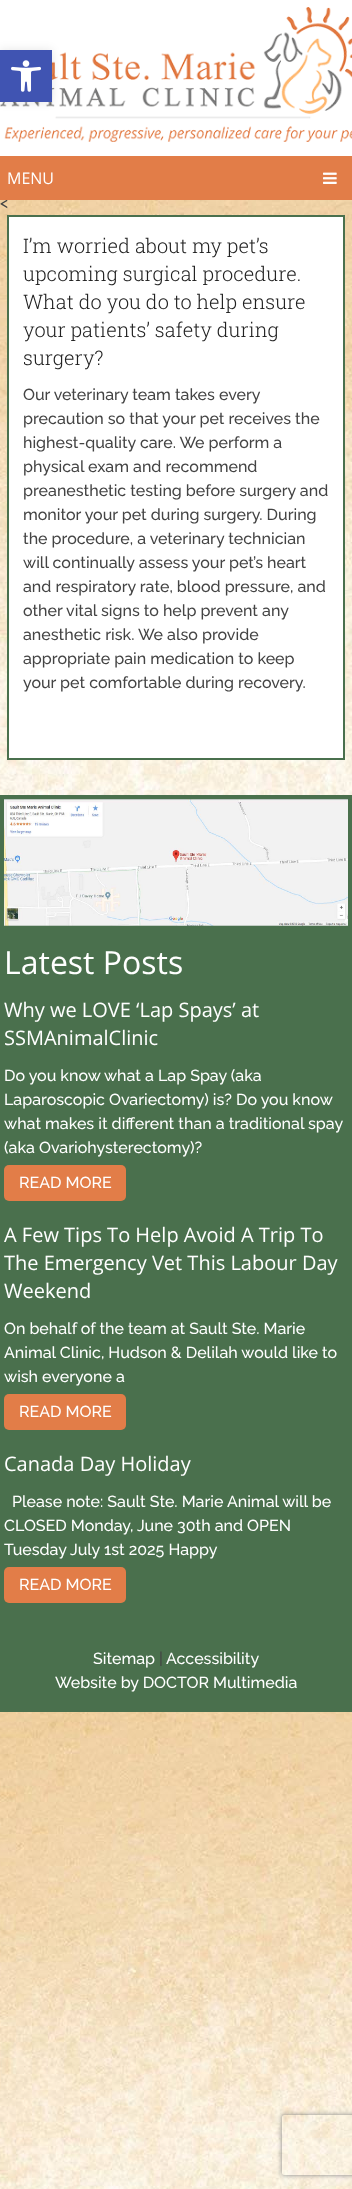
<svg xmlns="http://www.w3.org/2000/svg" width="352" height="2189">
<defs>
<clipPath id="clip1"><path d="M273 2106h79v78h-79zm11 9h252c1 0 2 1 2 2v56c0 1-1 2-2 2h-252c-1 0-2-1-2-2v-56c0-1 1-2 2-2z" clip-rule="evenodd"/></clipPath>
</defs>
<rect width="100%" height="100%" fill="#fff"/>
<image x="0" y="200" width="352" height="1989" href="media/1.png"/>
<image x="0" y="7" width="352" height="135" href="media/3.png"/>
<rect y="50" width="52" height="52" fill="#0000001a" filter="blur(5px)"/>
<rect y="50" width="52" height="52" fill="#4054b2"/>
<image x="11" y="60" width="30" height="32" href="media/2.png"/>
<text x="0" y="208" style="font-family:Raleway;font-size:16px;font-weight:100;fill:#444">&lt;</text>
<rect y="156" width="352" height="44" fill="#e27d48"/>
<text x="7" y="184" style="font-family:Open Sans;font-size:16px;fill:#fff">MENU</text>
<image x="323" y="172" width="14" height="12" href="media/4.png"/>
<rect x="8" y="216" width="336" height="543" fill="#fff" stroke="#4a704d" stroke-width="2"/>
<text x="23" y="253" style="font-family:Roboto Slab;font-size:20px;font-weight:300;fill:#222">I’m worried about my pet’s</text>
<text x="23" y="281" style="font-family:Roboto Slab;font-size:20px;font-weight:300;fill:#222">upcoming surgical procedure.</text>
<text x="23" y="309" style="font-family:Roboto Slab;font-size:20px;font-weight:300;fill:#222">What do you do to help ensure</text>
<text x="23" y="337" style="font-family:Roboto Slab;font-size:20px;font-weight:300;fill:#222">your patients’ safety during</text>
<text x="23" y="365" style="font-family:Roboto Slab;font-size:20px;font-weight:300;fill:#222">surgery?</text>
<text x="23" y="400" style="font-family:Raleway;font-size:16px;font-weight:100;fill:#444">Our veterinary team takes every</text>
<text x="23" y="424" style="font-family:Raleway;font-size:16px;font-weight:100;fill:#444">precaution so that your pet receives the</text>
<text x="23" y="448" style="font-family:Raleway;font-size:16px;font-weight:100;fill:#444">highest-quality care. We perform a</text>
<text x="23" y="472" style="font-family:Raleway;font-size:16px;font-weight:100;fill:#444">physical exam and recommend</text>
<text x="23" y="496" style="font-family:Raleway;font-size:16px;font-weight:100;fill:#444">preanesthetic testing before surgery and</text>
<text x="23" y="520" style="font-family:Raleway;font-size:16px;font-weight:100;fill:#444">monitor your pet during surgery. During</text>
<text x="23" y="544" style="font-family:Raleway;font-size:16px;font-weight:100;fill:#444">the procedure, a veterinary technician</text>
<text x="23" y="568" style="font-family:Raleway;font-size:16px;font-weight:100;fill:#444">will continually assess your pet’s heart</text>
<text x="23" y="592" style="font-family:Raleway;font-size:16px;font-weight:100;fill:#444">and respiratory rate, blood pressure, and</text>
<text x="23" y="616" style="font-family:Raleway;font-size:16px;font-weight:100;fill:#444">other vital signs to help prevent any</text>
<text x="23" y="640" style="font-family:Raleway;font-size:16px;font-weight:100;fill:#444">anesthetic risk. We also provide</text>
<text x="23" y="664" style="font-family:Raleway;font-size:16px;font-weight:100;fill:#444">appropriate pain medication to keep</text>
<text x="23" y="688" style="font-family:Raleway;font-size:16px;font-weight:100;fill:#444">your pet comfortable during recovery.</text>
<rect y="795" width="352" height="917" fill="#4a704d"/>
<image x="4" y="799" width="344" height="127" href="media/5.png"/>
<text x="4" y="974" style="font-family:Open Sans;font-size:32px;fill:#fff">Latest Posts</text>
<text x="4" y="1017" style="font-family:Open Sans;font-size:20px;fill:#fff">Why we LOVE ‘Lap Spays’ at</text>
<text x="4" y="1045" style="font-family:Open Sans;font-size:20px;fill:#fff">SSMAnimalClinic</text>
<text x="4" y="1081" style="font-family:Raleway;font-size:16px;font-weight:100;fill:#fff">Do you know what a Lap Spay (aka</text>
<text x="4" y="1105" style="font-family:Raleway;font-size:16px;font-weight:100;fill:#fff">Laparoscopic Ovariectomy) is? Do you know</text>
<text x="4" y="1129" style="font-family:Raleway;font-size:16px;font-weight:100;fill:#fff">what makes it different than a traditional spay</text>
<text x="4" y="1153" style="font-family:Raleway;font-size:16px;font-weight:100;fill:#fff">(aka Ovariohysterectomy)?</text>
<rect x="4" y="1165" width="122" height="36" rx="5" fill="#e27d48"/>
<text x="19" y="1188" style="font-family:Raleway;font-size:16px;font-weight:100;fill:#fff">READ MORE</text>
<text x="4" y="1242" style="font-family:Open Sans;font-size:20px;fill:#fff">A Few Tips To Help Avoid A Trip To</text>
<text x="4" y="1270" style="font-family:Open Sans;font-size:20px;fill:#fff">The Emergency Vet This Labour Day</text>
<text x="4" y="1298" style="font-family:Open Sans;font-size:20px;fill:#fff">Weekend</text>
<text x="4" y="1334" style="font-family:Raleway;font-size:16px;font-weight:100;fill:#fff">On behalf of the team at Sault Ste. Marie</text>
<text x="4" y="1358" style="font-family:Raleway;font-size:16px;font-weight:100;fill:#fff">Animal Clinic, Hudson &amp; Delilah would like to</text>
<text x="4" y="1382" style="font-family:Raleway;font-size:16px;font-weight:100;fill:#fff">wish everyone a</text>
<rect x="4" y="1394" width="122" height="36" rx="5" fill="#e27d48"/>
<text x="19" y="1417" style="font-family:Raleway;font-size:16px;font-weight:100;fill:#fff">READ MORE</text>
<text x="4" y="1471" style="font-family:Open Sans;font-size:20px;fill:#fff">Canada Day Holiday</text>
<text x="12" y="1507" style="font-family:Raleway;font-size:16px;font-weight:100;fill:#fff">Please note: Sault Ste. Marie Animal will be</text>
<text x="4" y="1531" style="font-family:Raleway;font-size:16px;font-weight:100;fill:#fff">CLOSED Monday, June 30th and OPEN</text>
<text x="4" y="1555" style="font-family:Raleway;font-size:16px;font-weight:100;fill:#fff">Tuesday July 1st 2025 Happy</text>
<rect x="4" y="1567" width="122" height="36" rx="5" fill="#e27d48"/>
<text x="19" y="1590" style="font-family:Raleway;font-size:16px;font-weight:100;fill:#fff">READ MORE</text>
<text x="93" y="1664" style="font-family:Raleway;font-size:16px;font-weight:100;fill:#fff">Sitemap</text>
<text x="159" y="1664" style="font-family:Raleway;font-size:16px;font-weight:100;fill:#444">|</text>
<text x="166" y="1664" style="font-family:Raleway;font-size:16px;font-weight:100;fill:#fff">Accessibility</text>
<text x="55" y="1688" style="font-family:Raleway;font-size:16px;font-weight:100;fill:#fff">Website by DOCTOR Multimedia</text>
<g clip-path="url(#clip1)">
<rect x="282" y="2115" width="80" height="60" rx="2" fill="#808080" filter="blur(2.5px)"/>
</g>
</svg>
